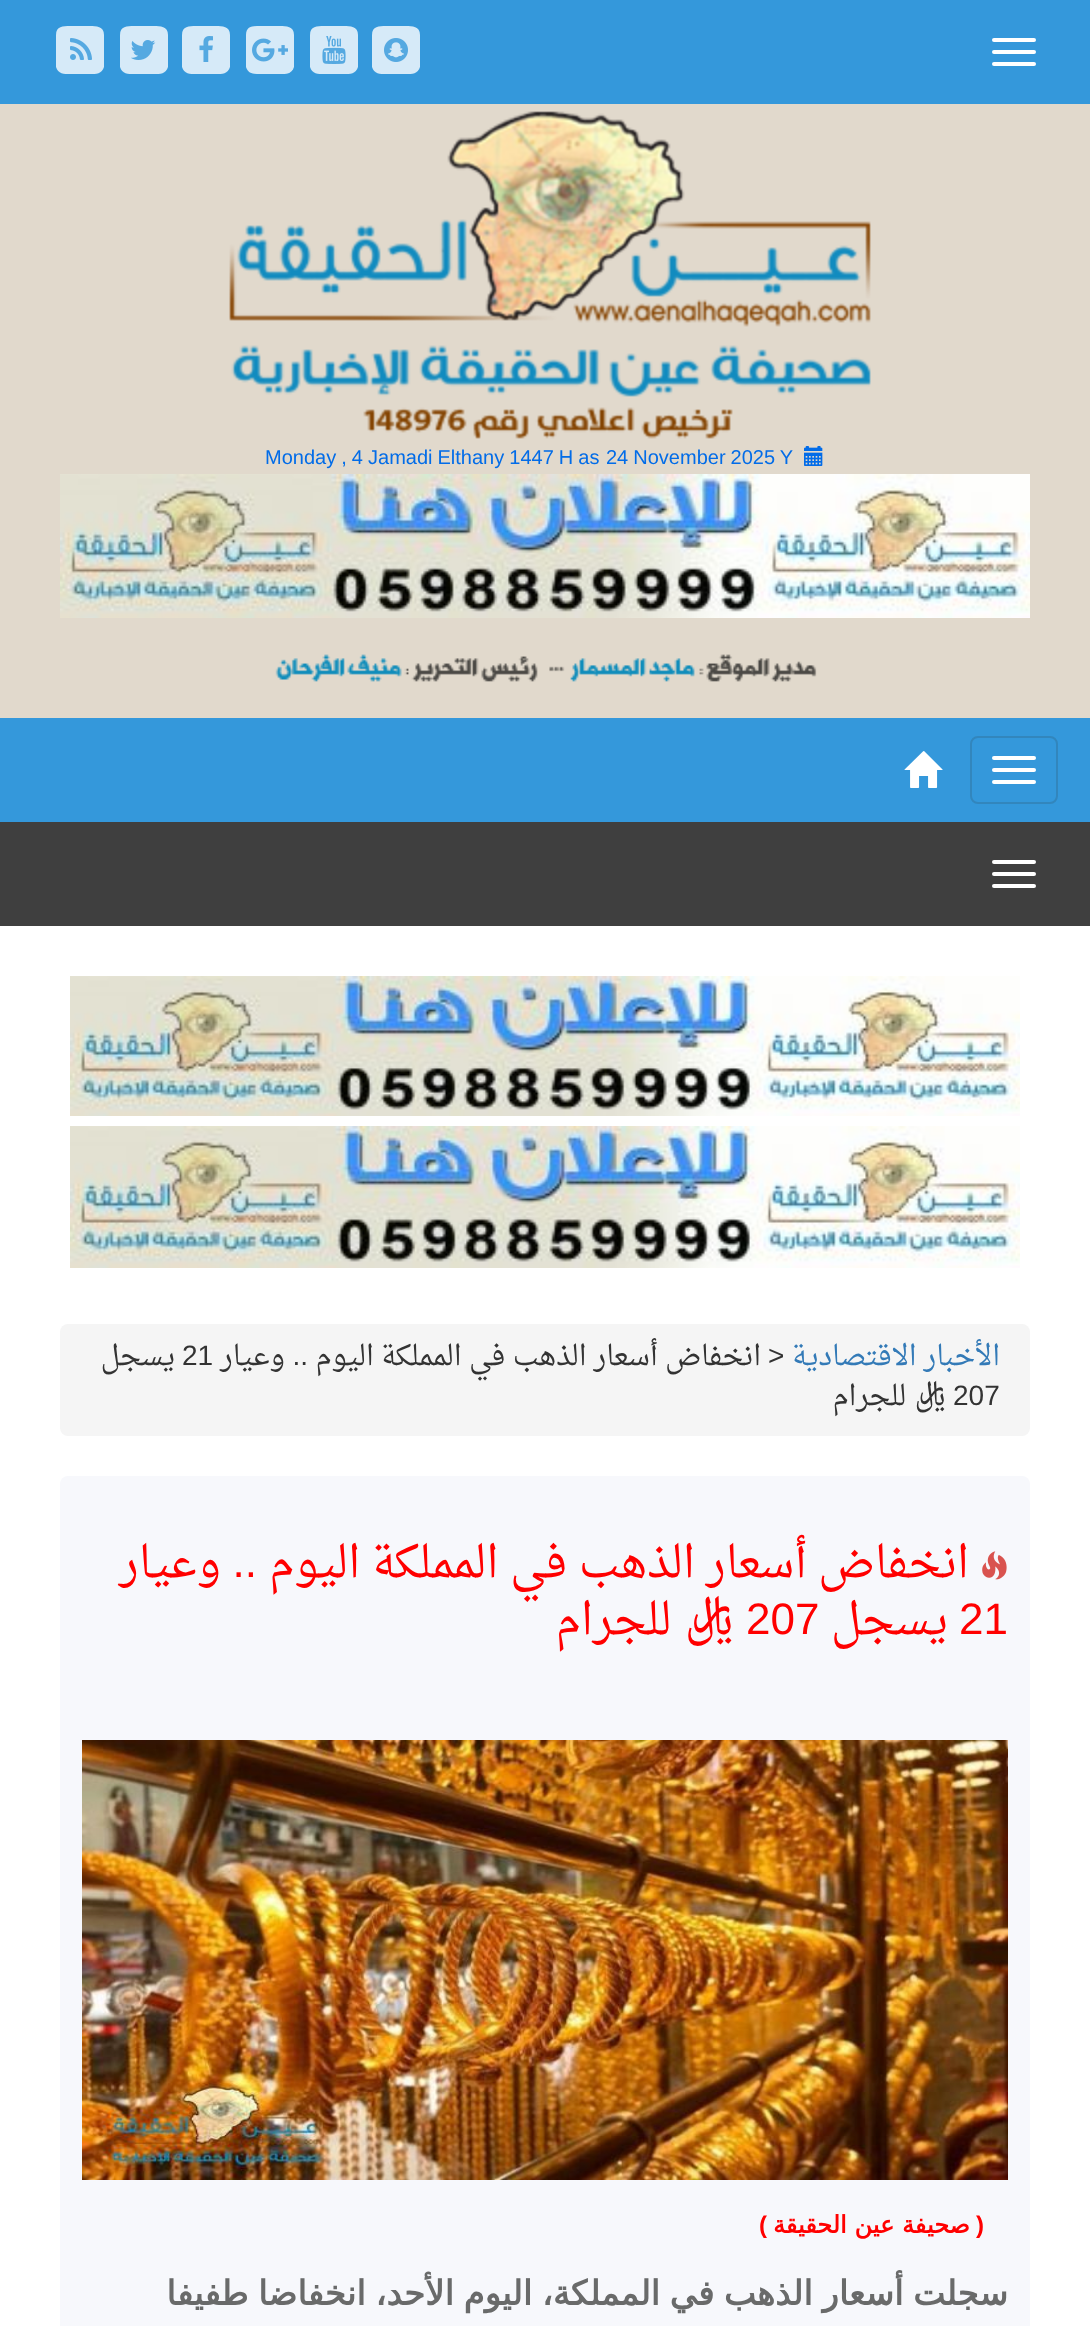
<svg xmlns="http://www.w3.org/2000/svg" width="1090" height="2326">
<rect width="100%" height="100%" fill="#fff"/>
<rect width="1090" height="104" fill="#3498db"/>
<rect x="992" y="38" width="44" height="4" rx="2" fill="#fff"/>
<rect x="992" y="50" width="44" height="4" rx="2" fill="#fff"/>
<rect x="992" y="62" width="44" height="4" rx="2" fill="#fff"/>
<path d="M420 35v32c-2 7-8 7-14 7h-20c-6 0-12 0-14-7v-32c0-9 7-9 14-9h20c6 0 14 0 14 9z" fill="#d6eaf8"/>
<image x="384" y="38" width="24" height="24" href="media/1.png"/>
<path d="M358 35v32c-2 7-8 7-14 7h-20c-6 0-12 0-14-7v-32c0-9 7-9 14-9h20c6 0 14 0 14 9z" fill="#d6eaf8"/>
<image x="322" y="36" width="24" height="28" href="media/2.png"/>
<path d="M294 35v32c-2 7-8 7-14 7h-20c-6 0-12 0-14-7v-32c0-9 7-9 14-9h20c6 0 14 0 14 9z" fill="#d6eaf8"/>
<image x="252" y="38" width="36" height="24" href="media/3.png"/>
<path d="M230 35v32c-2 7-8 7-14 7h-20c-6 0-12 0-14-7v-32c0-9 7-9 14-9h20c6 0 14 0 14 9z" fill="#d6eaf8"/>
<image x="199" y="36" width="14" height="26" href="media/4.png"/>
<path d="M168 35v32c-2 7-8 7-14 7h-20c-6 0-12 0-14-7v-32c0-9 7-9 14-9h20c6 0 14 0 14 9z" fill="#d6eaf8"/>
<image x="131" y="40" width="25" height="20" href="media/5.png"/>
<path d="M104 35v32c-2 7-8 7-14 7h-20c-6 0-12 0-14-7v-32c0-9 7-9 14-9h20c6 0 14 0 14 9z" fill="#d6eaf8"/>
<image x="70" y="38" width="22" height="22" href="media/6.png"/>
<rect y="104" width="1090" height="614" fill="#e1d9cc"/>
<image x="229" y="111" width="642" height="328" href="media/7.png"/>
<image x="804" y="446" width="19" height="20" href="media/8.png"/>
<text x="606" y="464" word-spacing="-0.5" style="font-family:Liberation Sans;font-size:20px;fill:#026ce8">24 November 2025 Y</text>
<text x="265" y="464" word-spacing="-0.5" style="font-family:Liberation Sans;font-size:20px;fill:#026ce8">Monday , 4 Jamadi Elthany 1447 H as</text>
<image x="60" y="474" width="970" height="144" href="media/9.png"/>
<image x="275" y="654" width="542" height="28" href="media/10.png"/>
<rect y="718" width="1090" height="104" fill="#3498db"/>
<rect x="971" y="737" width="86" height="66" rx="7" fill="none" stroke="#3286bd" stroke-width="2"/>
<rect x="992" y="756" width="44" height="4" rx="2" fill="#fff"/>
<rect x="992" y="768" width="44" height="4" rx="2" fill="#fff"/>
<rect x="992" y="780" width="44" height="4" rx="2" fill="#fff"/>
<image x="904" y="751" width="39" height="37" href="media/11.png"/>
<rect y="822" width="1090" height="104" fill="#3f3f3f"/>
<rect x="992" y="860" width="44" height="4" rx="2" fill="#fff"/>
<rect x="992" y="872" width="44" height="4" rx="2" fill="#fff"/>
<rect x="992" y="884" width="44" height="4" rx="2" fill="#fff"/>
<image x="70" y="976" width="950" height="140" href="media/12.png"/>
<image x="70" y="1126" width="950" height="142" href="media/13.png"/>
<rect x="60" y="1324" width="970" height="112" rx="8" fill="#f5f5f5"/>
<text x="1000" y="1365" style="font-family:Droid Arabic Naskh;font-size:28px;direction:rtl;fill:#337ab7">الأخبار الاقتصادية</text>
<text x="768" y="1365" style="font-family:Liberation Sans;font-size:28px;fill:#333">&gt;</text>
<text x="761" y="1365" style="font-family:Droid Arabic Naskh;font-size:28px;direction:rtl;fill:#333">انخفاض أسعار الذهب في المملكة اليوم</text>
<text x="285" y="1365" style="font-family:Droid Arabic Naskh;font-size:28px;direction:rtl;fill:#333">وعيار</text>
<text x="182" y="1365" style="font-family:Liberation Sans;font-size:28px;fill:#333">21</text>
<text x="175" y="1365" style="font-family:Droid Arabic Naskh;font-size:28px;direction:rtl;fill:#333">يسجل</text>
<text x="308" y="1365" style="font-family:Liberation Sans;font-size:28px;direction:rtl;fill:#333">..</text>
<text x="953" y="1405" style="font-family:Liberation Sans;font-size:28px;fill:#333">207</text>
<text x="946" y="1405" style="font-family:Droid Arabic Naskh;font-size:28px;direction:rtl;fill:#333">ريال للجرام</text>
<rect x="60" y="1476" width="970" height="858" rx="8" fill="#f7f8fc"/>
<image x="982" y="1551" width="25" height="29" href="media/14.png"/>
<text x="969" y="1577" style="font-family:Droid Arabic Naskh;font-size:44px;direction:rtl;fill:#f00">انخفاض أسعار الذهب في المملكة اليوم</text>
<text x="257" y="1577" style="font-family:Liberation Sans;font-size:44px;direction:rtl;fill:#f00">..</text>
<text x="221" y="1577" style="font-family:Droid Arabic Naskh;font-size:44px;direction:rtl;fill:#f00">وعيار</text>
<text x="959" y="1634" style="font-family:Liberation Sans;font-size:44px;fill:#f00">21</text>
<text x="948" y="1634" style="font-family:Droid Arabic Naskh;font-size:44px;direction:rtl;fill:#f00">يسجل</text>
<text x="746" y="1634" style="font-family:Liberation Sans;font-size:44px;fill:#f00">207</text>
<text x="734" y="1634" style="font-family:Droid Arabic Naskh;font-size:44px;direction:rtl;fill:#f00">ريال للجرام</text>
<image x="82" y="1740" width="926" height="440" href="media/15.png"/>
<text x="984" y="2233" style="font-family:Liberation Sans;font-size:24px;font-weight:bold;direction:rtl;fill:#f00">(</text>
<text x="970" y="2233" style="font-family:DejaVu Sans;font-size:24px;font-weight:bold;direction:rtl;fill:#f00">صحيفة عين الحقيقة</text>
<text x="767" y="2233" style="font-family:Liberation Sans;font-size:24px;font-weight:bold;direction:rtl;fill:#f00">)</text>
<text x="1008" y="2305" word-spacing="-1.25" style="font-family:DejaVu Sans;font-size:34px;font-weight:bold;direction:rtl;fill:#696a6a">سجلت أسعار الذهب في المملكة، اليوم الأحد، انخفاضا طفيفا</text>
</svg>
